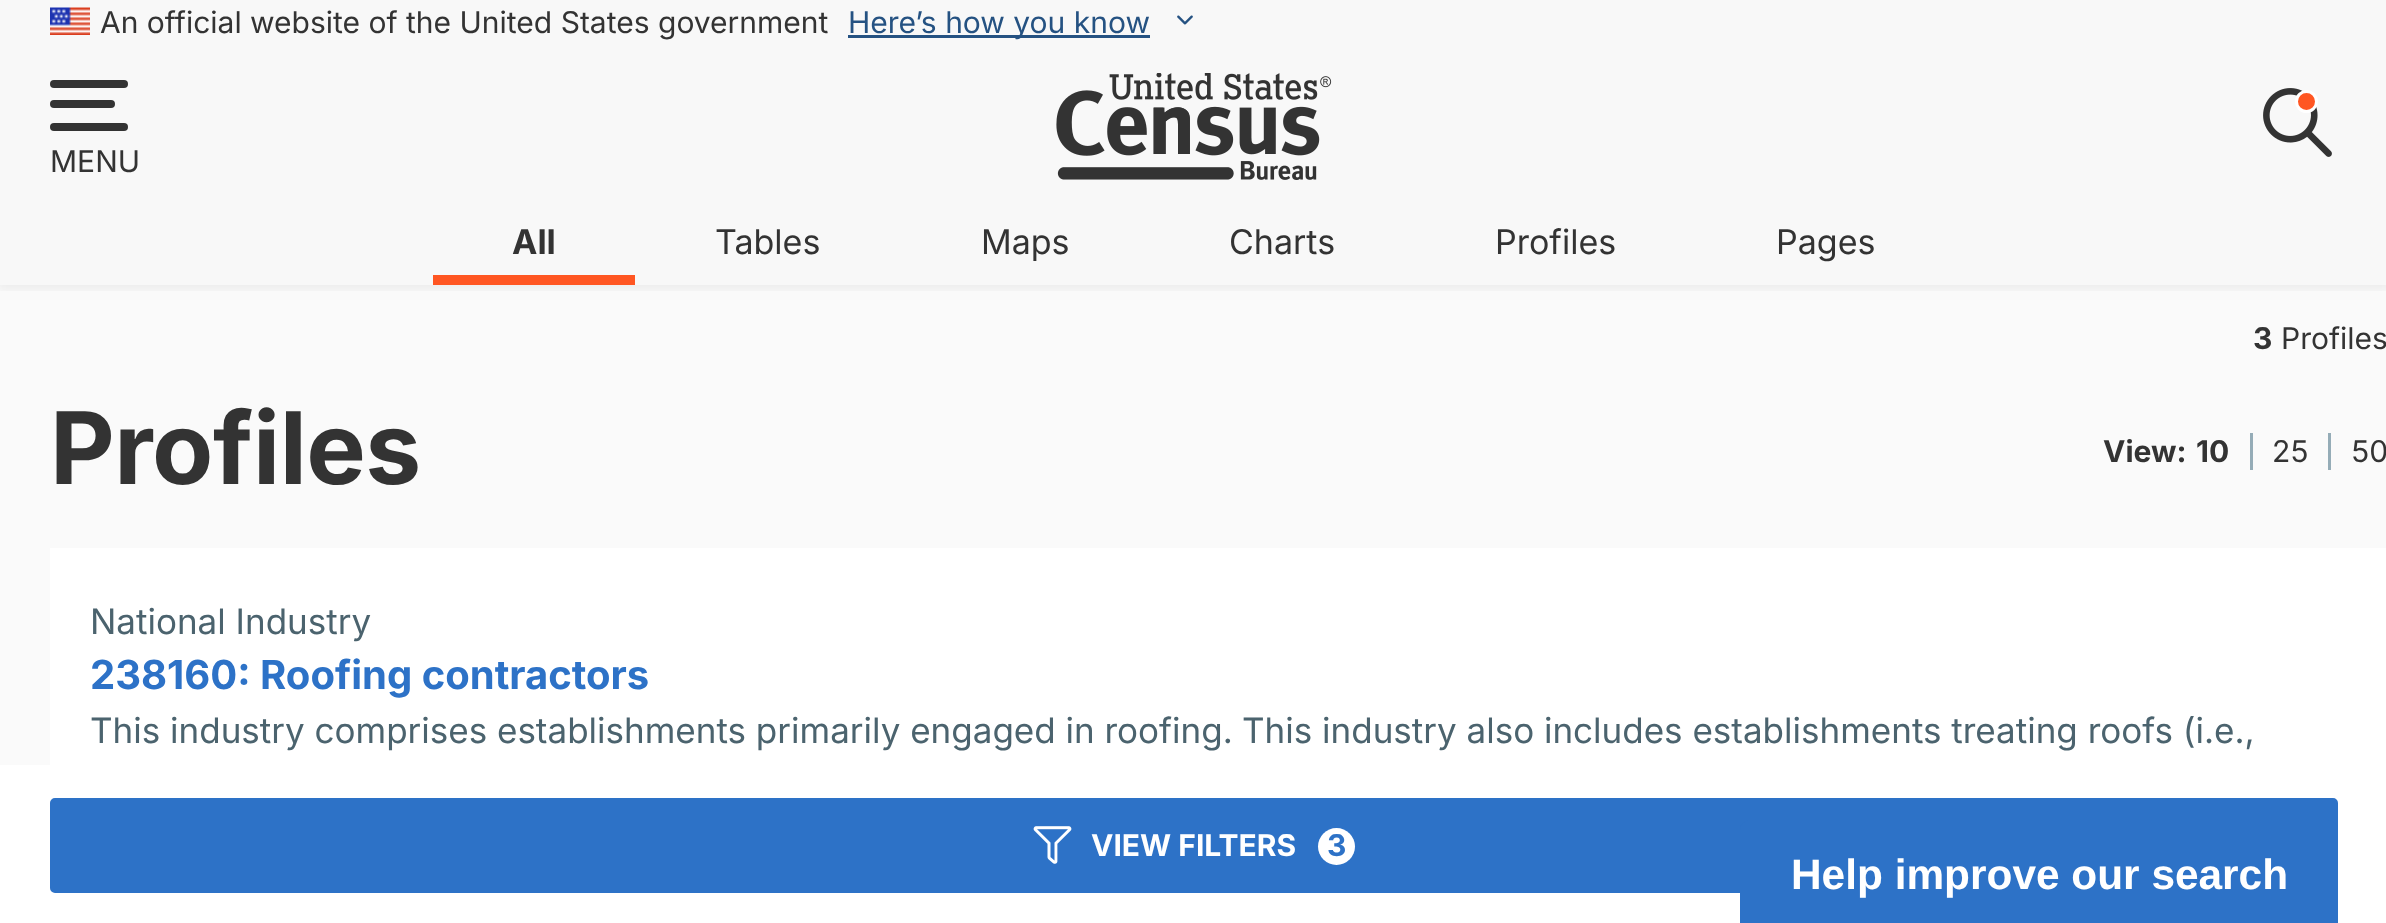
<svg xmlns="http://www.w3.org/2000/svg" width="2386" height="923">
<defs>
<clipPath id="clip1"><rect x="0" y="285" width="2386" height="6"/></clipPath>
</defs>
<rect width="100%" height="100%" fill="#fff"/>
<rect y="43" width="2386" height="242" fill="#f8f8f8"/>
<rect y="285" width="2386" height="480" fill="#fafafa"/>
<g clip-path="url(#clip1)">
<rect x="-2" y="43" width="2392" height="247" fill="#0000000d" filter="blur(5px)"/>
</g>
<rect width="2386" height="43" fill="#f8f8f8"/>
<image x="50" y="7" width="40" height="28" href="media/1.png"/>
<text x="100" y="33" style="font-family:Inter;font-size:30px;fill:#333">An official website of the United States government</text>
<rect x="848" y="35" width="302" height="3" fill="#255282"/>
<text x="848" y="33" style="font-family:Inter;font-size:30px;fill:#255282">Here’s how you know</text>
<image x="1177" y="15" width="16" height="10" href="media/2.png"/>
<image x="1056" y="73" width="276" height="107" href="media/3.png"/>
<image x="2263" y="88" width="69" height="69" href="media/4.png"/>
<circle cx="2306.5" cy="101.5" r="10" fill="#ff5622" stroke="#fff" stroke-width="3"/>
<rect x="50" y="80" width="78" height="8" rx="4" fill="#333"/>
<rect x="50" y="100" width="65" height="8" rx="4" fill="#333"/>
<rect x="50" y="123" width="78" height="8" rx="4" fill="#333"/>
<text x="50" y="172" style="font-family:Inter;font-size:30px;fill:#333">MENU</text>
<text x="512" y="254" style="font-family:Inter;font-size:34px;font-weight:bold;fill:#333">All</text>
<text x="715" y="254" style="font-family:Inter;font-size:34px;fill:#333">Tables</text>
<text x="981" y="254" style="font-family:Inter;font-size:34px;fill:#333">Maps</text>
<text x="1229" y="254" style="font-family:Inter;font-size:34px;fill:#333">Charts</text>
<text x="1495" y="254" style="font-family:Inter;font-size:34px;fill:#333">Profiles</text>
<text x="1776" y="254" style="font-family:Inter;font-size:34px;fill:#333">Pages</text>
<rect x="433" y="275" width="202" height="10" fill="#ff5622"/>
<text x="2253" y="349" style="font-family:Inter;font-size:30px;font-weight:bold;fill:#333">3</text>
<text x="2281" y="349" style="font-family:Inter;font-size:30px;fill:#333">Profiles</text>
<text x="50" y="484" style="font-family:Inter;font-size:100px;font-weight:bold;letter-spacing:-0.5px;fill:#333">Profiles</text>
<text x="2103" y="462" style="font-family:Inter;font-size:30px;font-weight:bold;fill:#333">View:</text>
<text x="2196" y="462" style="font-family:Inter;font-size:30px;font-weight:bold;fill:#333">10</text>
<rect x="2250" y="433" width="3" height="37" fill="#95acb7"/>
<text x="2272" y="462" style="font-family:Inter;font-size:30px;fill:#333">25</text>
<rect x="2328" y="433" width="3" height="37" fill="#95acb7"/>
<text x="2351" y="462" style="font-family:Inter;font-size:30px;fill:#333">50</text>
<rect x="50" y="548" width="2336" height="217" fill="#fff"/>
<text x="90" y="634" style="font-family:Inter;font-size:35px;fill:#4b636e">National Industry</text>
<text x="90" y="689" style="font-family:Inter;font-size:40px;font-weight:bold;fill:#2d72c7">238160: Roofing contractors</text>
<text x="90" y="743" style="font-family:Inter;font-size:35px;fill:#4b636e">This industry comprises establishments primarily engaged in roofing.</text>
<text x="1242" y="743" style="font-family:Inter;font-size:35px;fill:#4b636e">This industry also includes establishments treating roofs (i.e.,</text>
<rect x="51.5" y="799.5" width="2285" height="92" rx="3.5" fill="#2d72c7" stroke="#2d72c7" stroke-width="3"/>
<image x="1033" y="826" width="39" height="38" href="media/5.png"/>
<text x="1091" y="856" style="font-family:Inter;font-size:30px;font-weight:bold;fill:#fff">VIEW FILTERS</text>
<circle cx="1336.5" cy="846.5" r="18.5" fill="#fff"/>
<text x="1327" y="856" style="font-family:Inter;font-size:30px;font-weight:bold;fill:#2d72c7">3</text>
<path d="M1750 820h578c5.5 0 10 4.5 10 10v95h-598v-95c0-5.5 4.5-10 10-10z" fill="#2d72c7"/>
<text x="1791" y="889" style="font-family:Liberation Sans;font-size:42.4px;font-weight:bold;fill:#fff">Help improve our search</text>
</svg>
